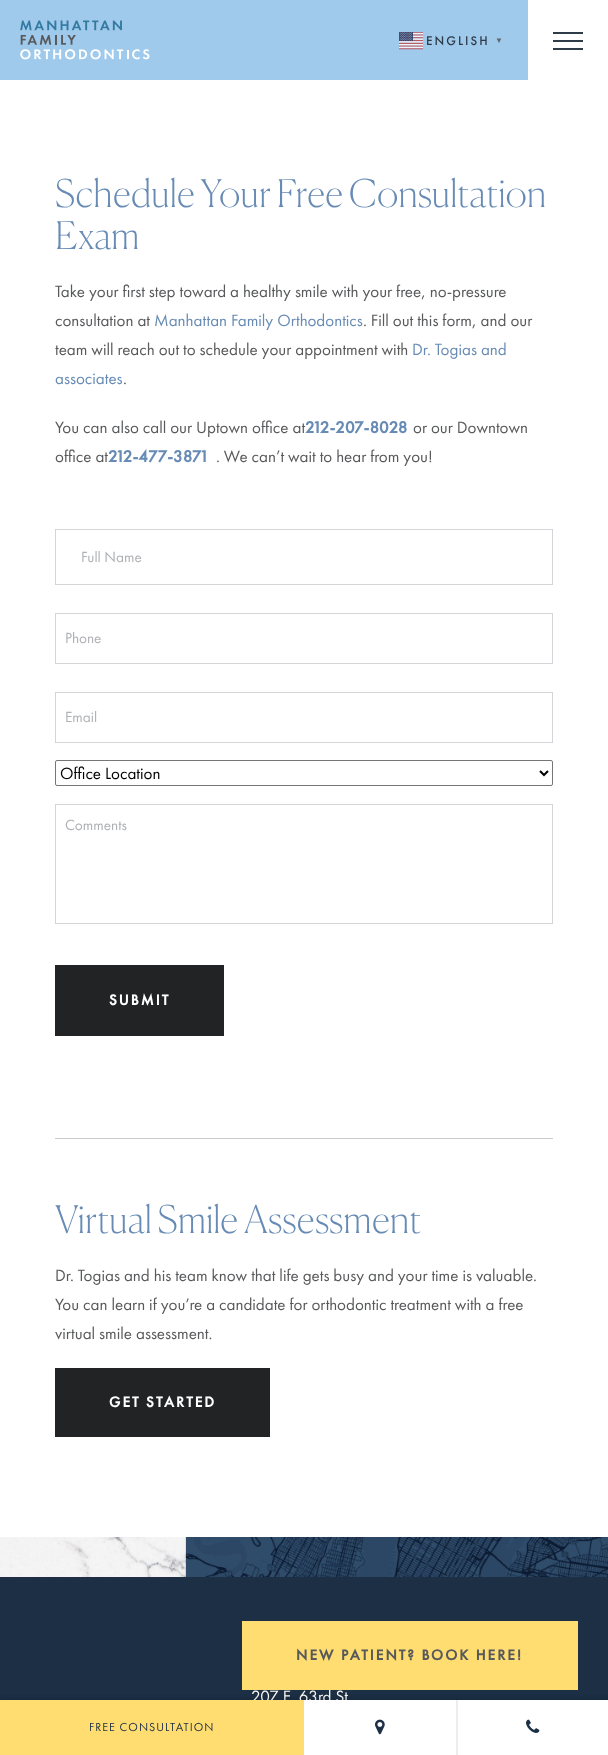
<svg xmlns="http://www.w3.org/2000/svg" width="608" height="1755">
<rect width="100%" height="100%" fill="#fff"/>
<rect width="528" height="80" fill="#9fcaec"/>
<image x="20" y="20" width="130" height="40" href="media/1.png"/>
<image x="399" y="32" width="24" height="18" href="media/2.png"/>
<text x="426" y="45" style="font-family:Futura PT;font-size:13px;font-weight:500;letter-spacing:2px;fill:#2e3b49">ENGLISH</text>
<text x="495" y="43" style="font-family:Liberation Sans;font-size:8px;font-weight:bold;fill:#666">▼</text>
<rect x="553" y="40" width="30" height="2" fill="#2e3b49"/>
<rect x="553" y="32" width="30" height="2" fill="#2e3b49"/>
<rect x="553" y="48" width="30" height="2" fill="#2e3b49"/>
<text x="55" y="207" style="font-family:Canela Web;font-size:38px;font-weight:100;fill:#678bb5">Schedule Your Free Consultation</text>
<text x="55" y="249" style="font-family:Canela Web;font-size:38px;font-weight:100;fill:#678bb5">Exam</text>
<text x="55" y="297" style="font-family:Futura PT;font-size:17px;fill:#58595b">Take your first step toward a healthy smile with your free, no-pressure</text>
<text x="55" y="326" style="font-family:Futura PT;font-size:17px;fill:#58595b">consultation at</text>
<text x="154" y="326" style="font-family:Futura PT;font-size:17px;fill:#678bb5">Manhattan Family Orthodontics</text>
<text x="363" y="326" style="font-family:Futura PT;font-size:17px;fill:#58595b">. Fill out this form, and our</text>
<text x="55" y="355" style="font-family:Futura PT;font-size:17px;fill:#58595b">team will reach out to schedule your appointment with</text>
<text x="412" y="355" style="font-family:Futura PT;font-size:17px;fill:#678bb5">Dr. Togias and</text>
<text x="55" y="384" style="font-family:Futura PT;font-size:17px;fill:#678bb5">associates</text>
<text x="123" y="384" style="font-family:Futura PT;font-size:17px;fill:#58595b">.</text>
<text x="55" y="433" style="font-family:Futura PT;font-size:17px;fill:#58595b">You can also call our Uptown office at</text>
<text x="305" y="433" style="font-family:Futura PT;font-size:17px;font-weight:bold;fill:#678bb5">212-207-8028</text>
<text x="413" y="433" style="font-family:Futura PT;font-size:17px;fill:#58595b">or our Downtown</text>
<text x="55" y="462" style="font-family:Futura PT;font-size:17px;fill:#58595b">office at</text>
<text x="108" y="462" style="font-family:Futura PT;font-size:17px;font-weight:bold;fill:#678bb5">212-477-3871</text>
<text x="216" y="462" style="font-family:Futura PT;font-size:17px;fill:#58595b">. We can’t wait to hear from you!</text>
<rect x="55.5" y="529.5" width="497" height="55" fill="none" stroke="#d4d5d8"/>
<text x="81" y="562" style="font-family:Futura PT;font-size:15.25px;fill:#afb1b4">Full Name</text>
<rect x="55.5" y="613.5" width="497" height="50" fill="none" stroke="#d4d5d8"/>
<text x="65" y="643" style="font-family:Futura PT;font-size:15.25px;fill:#afb1b4">Phone</text>
<rect x="55.5" y="692.5" width="497" height="50" fill="none" stroke="#d4d5d8"/>
<text x="65" y="722" style="font-family:Futura PT;font-size:15.25px;fill:#afb1b4">Email</text>
<rect x="55.5" y="760.5" width="497" height="25" rx="1.5" fill="none" stroke="#767676"/>
<path d="M540 771l4 4l4-4" fill="none" stroke="#000" stroke-width="2"/>
<text x="60" y="779" style="font-family:Futura PT;font-size:17px;fill:#000">Office Location</text>
<rect x="55.5" y="804.5" width="497" height="119" fill="none" stroke="#d4d5d8"/>
<text x="65" y="830" style="font-family:Futura PT;font-size:15.25px;fill:#afb1b4">Comments</text>
<rect x="55" y="965" width="169" height="71" fill="#222325"/>
<text x="109" y="1005" style="font-family:Futura PT;font-size:15.25px;font-weight:bold;letter-spacing:2px;fill:#fff">SUBMIT</text>
<rect x="55" y="1138" width="498" height="1" fill="#ccc"/>
<text x="55" y="1233" style="font-family:Canela Web;font-size:38px;font-weight:100;fill:#678bb5">Virtual Smile Assessment</text>
<text x="55" y="1281" style="font-family:Futura PT;font-size:17px;fill:#58595b">Dr. Togias and his team know that life gets busy and your time is valuable.</text>
<text x="55" y="1310" style="font-family:Futura PT;font-size:17px;fill:#58595b">You can learn if you’re a candidate for orthodontic treatment with a free</text>
<text x="55" y="1339" style="font-family:Futura PT;font-size:17px;fill:#58595b">virtual smile assessment.</text>
<rect x="55" y="1368" width="215" height="69" fill="#222325"/>
<text x="109" y="1407" style="font-family:Futura PT;font-size:15.25px;font-weight:bold;letter-spacing:2px;fill:#fff">GET STARTED</text>
<rect y="1577" width="608" height="123" fill="#1c2f44"/>
<text x="251" y="1702" style="font-family:Futura PT;font-size:17px;fill:#fef9f4">207 E. 63rd St.</text>
<rect x="242" y="1621" width="336" height="69" fill="#ffdd71"/>
<text x="296" y="1660" style="font-family:Futura PT;font-size:15.25px;font-weight:bold;letter-spacing:2px;fill:#58595b">NEW PATIENT? BOOK HERE!</text>
<image x="0" y="1537" width="608" height="40" href="media/3.png"/>
<rect y="1699" width="608" height="55" fill="#0000001a" filter="blur(2px)"/>
<rect y="1699" width="608" height="55" fill="#0000000d" filter="blur(2px)"/>
<rect x="304" y="1700" width="304" height="55" fill="#fff"/>
<rect y="1700" width="304" height="55" fill="#ffdd71"/>
<text x="89" y="1731" style="font-family:Futura PT;font-size:12px;letter-spacing:1px;fill:#1c2f44">FREE CONSULTATION</text>
<image x="375" y="1719" width="10" height="16" href="media/4.png"/>
<rect x="456" y="1700" width="2" height="55" fill="#ededed"/>
<image x="526" y="1719" width="14" height="14" href="media/5.png"/>
</svg>
